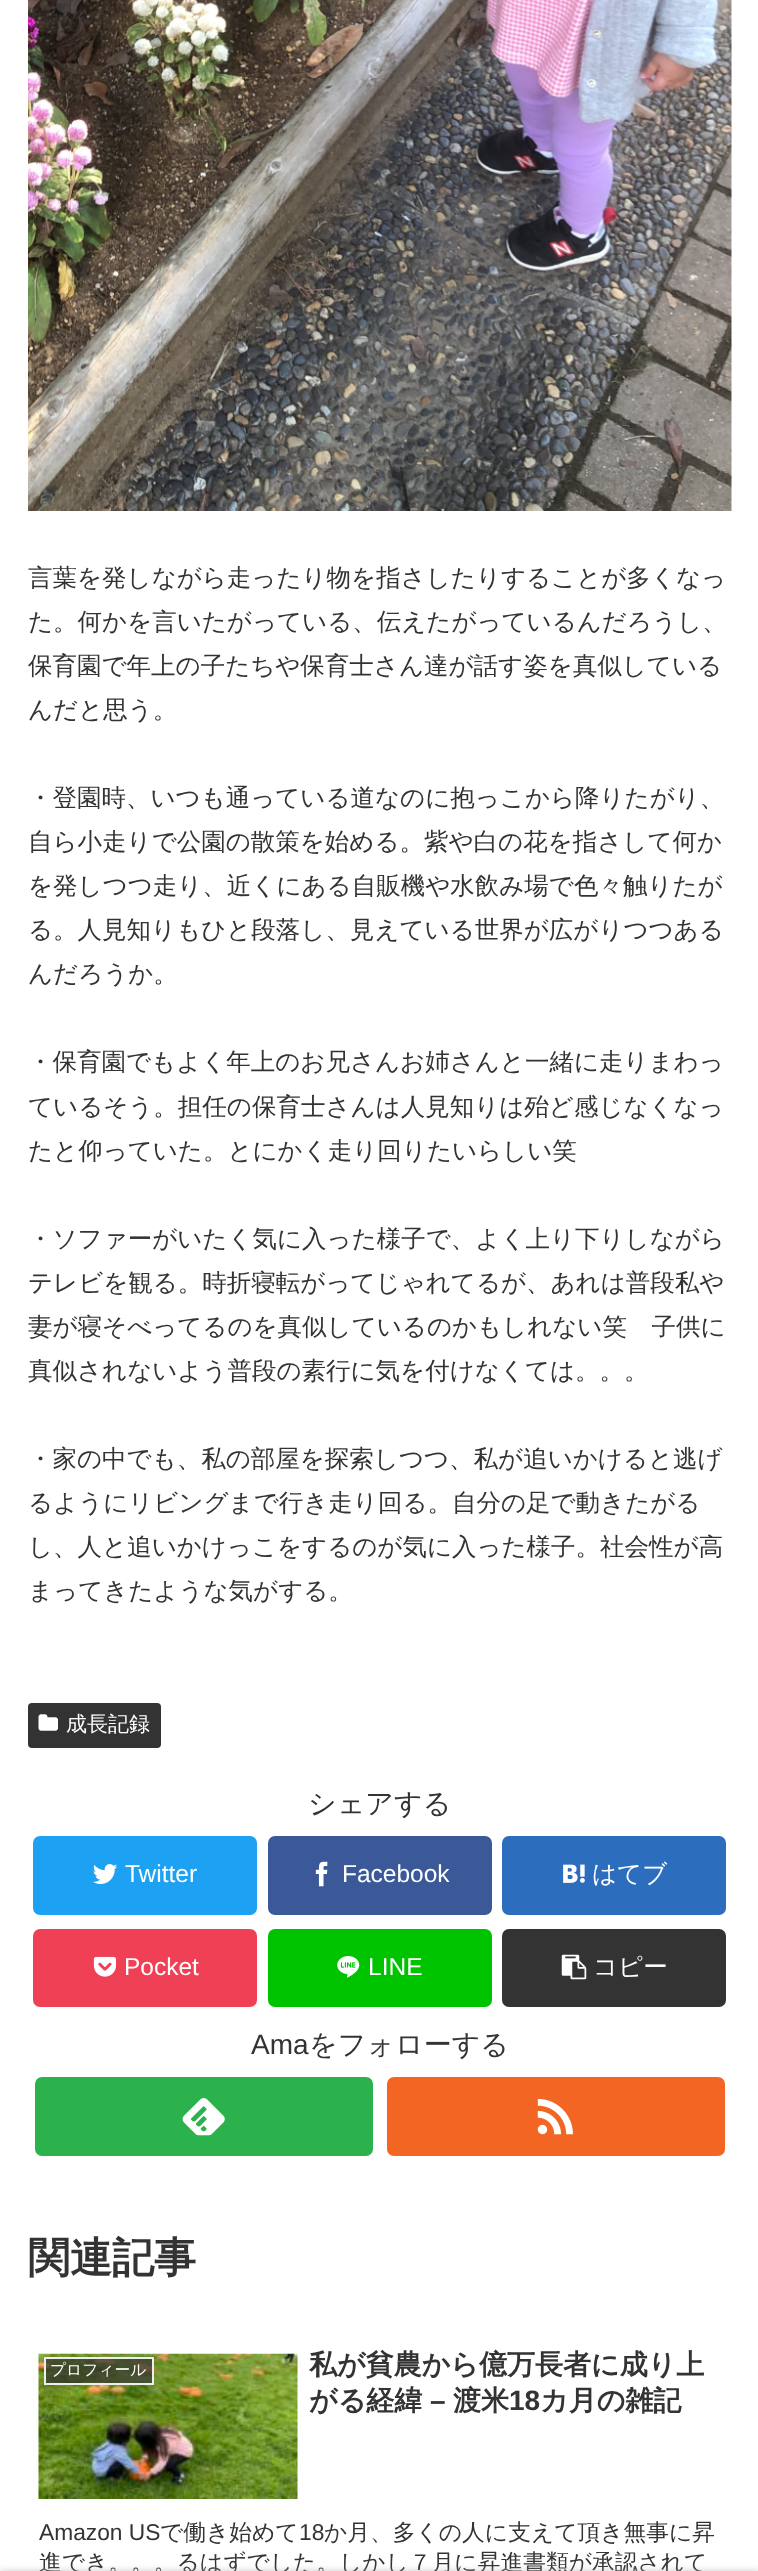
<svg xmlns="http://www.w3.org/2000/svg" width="758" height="2571">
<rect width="100%" height="100%" fill="#fff"/>
<image x="28" y="0" width="704" height="511" href="media/1.png"/>
<text x="28" y="586" style="font-family:WenQuanYi Zen Hei;font-size:24.5px;font-weight:500;fill:#333">言葉を発しながら走ったり物を指さしたりすることが多くなっ</text>
<text x="28" y="630" style="font-family:WenQuanYi Zen Hei;font-size:24.5px;font-weight:500;fill:#333">た。何かを言いたがっている、伝えたがっているんだろうし、</text>
<text x="28" y="674" style="font-family:WenQuanYi Zen Hei;font-size:24.5px;font-weight:500;fill:#333">保育園で年上の子たちや保育士さん達が話す姿を真似している</text>
<text x="28" y="718" style="font-family:WenQuanYi Zen Hei;font-size:24.5px;font-weight:500;fill:#333">んだと思う。</text>
<text x="28" y="806" style="font-family:WenQuanYi Zen Hei;font-size:24.5px;font-weight:500;fill:#333">・登園時、いつも通っている道なのに抱っこから降りたがり、</text>
<text x="28" y="850" style="font-family:WenQuanYi Zen Hei;font-size:24.5px;font-weight:500;fill:#333">自ら小走りで公園の散策を始める。紫や白の花を指さして何か</text>
<text x="28" y="894" style="font-family:WenQuanYi Zen Hei;font-size:24.5px;font-weight:500;fill:#333">を発しつつ走り、近くにある自販機や水飲み場で色々触りたが</text>
<text x="28" y="938" style="font-family:WenQuanYi Zen Hei;font-size:24.5px;font-weight:500;fill:#333">る。人見知りもひと段落し、見えている世界が広がりつつある</text>
<text x="28" y="982" style="font-family:WenQuanYi Zen Hei;font-size:24.5px;font-weight:500;fill:#333">んだろうか。</text>
<text x="28" y="1070" style="font-family:WenQuanYi Zen Hei;font-size:24.5px;font-weight:500;fill:#333">・保育園でもよく年上のお兄さんお姉さんと一緒に走りまわっ</text>
<text x="28" y="1115" style="font-family:WenQuanYi Zen Hei;font-size:24.5px;font-weight:500;fill:#333">ているそう。担任の保育士さんは人見知りは殆ど感じなくなっ</text>
<text x="28" y="1159" style="font-family:WenQuanYi Zen Hei;font-size:24.5px;font-weight:500;fill:#333">たと仰っていた。とにかく走り回りたいらしい笑</text>
<text x="28" y="1247" style="font-family:WenQuanYi Zen Hei;font-size:24.5px;font-weight:500;fill:#333">・ソファーがいたく気に入った様子で、よく上り下りしながら</text>
<text x="28" y="1291" style="font-family:WenQuanYi Zen Hei;font-size:24.5px;font-weight:500;fill:#333">テレビを観る。時折寝転がってじゃれてるが、あれは普段私や</text>
<text x="28" y="1335" style="font-family:WenQuanYi Zen Hei;font-size:24.5px;font-weight:500;fill:#333">妻が寝そべってるのを真似しているのかもしれない笑　子供に</text>
<text x="28" y="1379" style="font-family:WenQuanYi Zen Hei;font-size:24.5px;font-weight:500;fill:#333">真似されないよう普段の素行に気を付けなくては。。。</text>
<text x="28" y="1467" style="font-family:WenQuanYi Zen Hei;font-size:24.5px;font-weight:500;fill:#333">・家の中でも、私の部屋を探索しつつ、私が追いかけると逃げ</text>
<text x="28" y="1511" style="font-family:WenQuanYi Zen Hei;font-size:24.5px;font-weight:500;fill:#333">るようにリビングまで行き走り回る。自分の足で動きたがる</text>
<text x="28" y="1555" style="font-family:WenQuanYi Zen Hei;font-size:24.5px;font-weight:500;fill:#333">し、人と追いかけっこをするのが気に入った様子。社会性が高</text>
<text x="28" y="1599" style="font-family:WenQuanYi Zen Hei;font-size:24.5px;font-weight:500;fill:#333">まってきたような気がする。</text>
<rect x="28" y="1703" width="133" height="45" rx="4" fill="#333"/>
<image x="38" y="1714" width="20" height="17" href="media/2.png"/>
<text x="66" y="1731" style="font-family:WenQuanYi Zen Hei;font-size:21px;font-weight:500;fill:#fff">成長記録</text>
<text x="308" y="1813" style="font-family:WenQuanYi Zen Hei;font-size:28px;font-weight:500;fill:#333">シェアする</text>
<rect x="33" y="1836" width="224" height="79" rx="7" fill="#1da1f2"/>
<image x="93" y="1864" width="25" height="20" href="media/3.png"/>
<text x="125" y="1882" style="font-family:Liberation Sans;font-size:24.5px;fill:#fff">Twitter</text>
<rect x="268" y="1836" width="224" height="79" rx="7" fill="#3b5998"/>
<image x="315" y="1861" width="13" height="26" href="media/4.png"/>
<text x="342" y="1882" style="font-family:Liberation Sans;font-size:24.5px;fill:#fff">Facebook</text>
<rect x="502" y="1836" width="224" height="79" rx="7" fill="#2c6ebd"/>
<image x="563" y="1864" width="22" height="19" href="media/5.png"/>
<text x="592" y="1882" style="font-family:WenQuanYi Zen Hei;font-size:24.5px;font-weight:500;fill:#fff">はてブ</text>
<rect x="33" y="1929" width="224" height="78" rx="7" fill="#ef4056"/>
<image x="93" y="1956" width="23" height="21" href="media/6.png"/>
<text x="124" y="1975" style="font-family:Liberation Sans;font-size:24.5px;fill:#fff">Pocket</text>
<rect x="268" y="1929" width="224" height="78" rx="7" fill="#00c300"/>
<image x="337" y="1956" width="23" height="22" href="media/7.png"/>
<text x="368" y="1975" style="font-family:Liberation Sans;font-size:24.5px;fill:#fff">LINE</text>
<rect x="502" y="1929" width="224" height="78" rx="7" fill="#333"/>
<image x="561" y="1954" width="26" height="26" href="media/8.png"/>
<text x="593" y="1975" style="font-family:WenQuanYi Zen Hei;font-size:24.5px;font-weight:500;fill:#fff">コピー</text>
<text x="251" y="2054" style="font-family:Liberation Sans;font-size:28px;fill:#333">Ama</text>
<text x="309" y="2054" style="font-family:WenQuanYi Zen Hei;font-size:28px;font-weight:500;fill:#333">をフォローする</text>
<rect x="35" y="2077" width="338" height="79" rx="7" fill="#2bb24c"/>
<image x="182" y="2098" width="43" height="38" href="media/9.png"/>
<rect x="387" y="2077" width="338" height="79" rx="7" fill="#f26522"/>
<image x="537" y="2098" width="36" height="37" href="media/10.png"/>
<text x="28" y="2272" style="font-family:WenQuanYi Zen Hei;font-size:42px;font-weight:bold;fill:#333">関連記事</text>
<text x="309" y="2374" style="font-family:WenQuanYi Zen Hei;font-size:28px;font-weight:bold;fill:#333">私が貧農から億万長者に成り上</text>
<text x="309" y="2410" style="font-family:WenQuanYi Zen Hei;font-size:28px;font-weight:bold;fill:#333">がる経緯</text>
<text x="430" y="2410" style="font-family:Liberation Sans;font-size:28px;font-weight:bold;fill:#333">–</text>
<text x="453" y="2410" style="font-family:WenQuanYi Zen Hei;font-size:28px;font-weight:bold;fill:#333">渡米</text>
<text x="509" y="2410" style="font-family:Liberation Sans;font-size:28px;font-weight:bold;fill:#333">18</text>
<text x="540" y="2410" style="font-family:WenQuanYi Zen Hei;font-size:28px;font-weight:bold;fill:#333">カ月の雑記</text>
<text x="39" y="2540" style="font-family:Liberation Sans;font-size:22.75px;fill:#333">Amazon US</text>
<text x="160" y="2540" style="font-family:WenQuanYi Zen Hei;font-size:22.75px;font-weight:500;fill:#333">で働き始めて</text>
<text x="299" y="2540" style="font-family:Liberation Sans;font-size:22.75px;fill:#333">18</text>
<text x="324" y="2540" style="font-family:WenQuanYi Zen Hei;font-size:22.75px;font-weight:500;fill:#333">か月、多くの人に支えて頂き無事に昇</text>
<text x="39" y="2570" style="font-family:WenQuanYi Zen Hei;font-size:22.75px;font-weight:500;fill:#333">進でき。。。るはずでした。しかし７月に昇進書類が承認されて</text>
<image x="38" y="2353" width="260" height="146" href="media/11.png"/>
<rect x="45" y="2358" width="108" height="26" fill="#333333b3" stroke="#eee" stroke-width="2"/>
<text x="50" y="2375" style="font-family:WenQuanYi Zen Hei;font-size:15.75px;font-weight:500;fill:#fff">プロフィール</text>
<rect y="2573" width="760" height="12" fill="#a9a9a9" filter="blur(4.5px)"/>
</svg>
